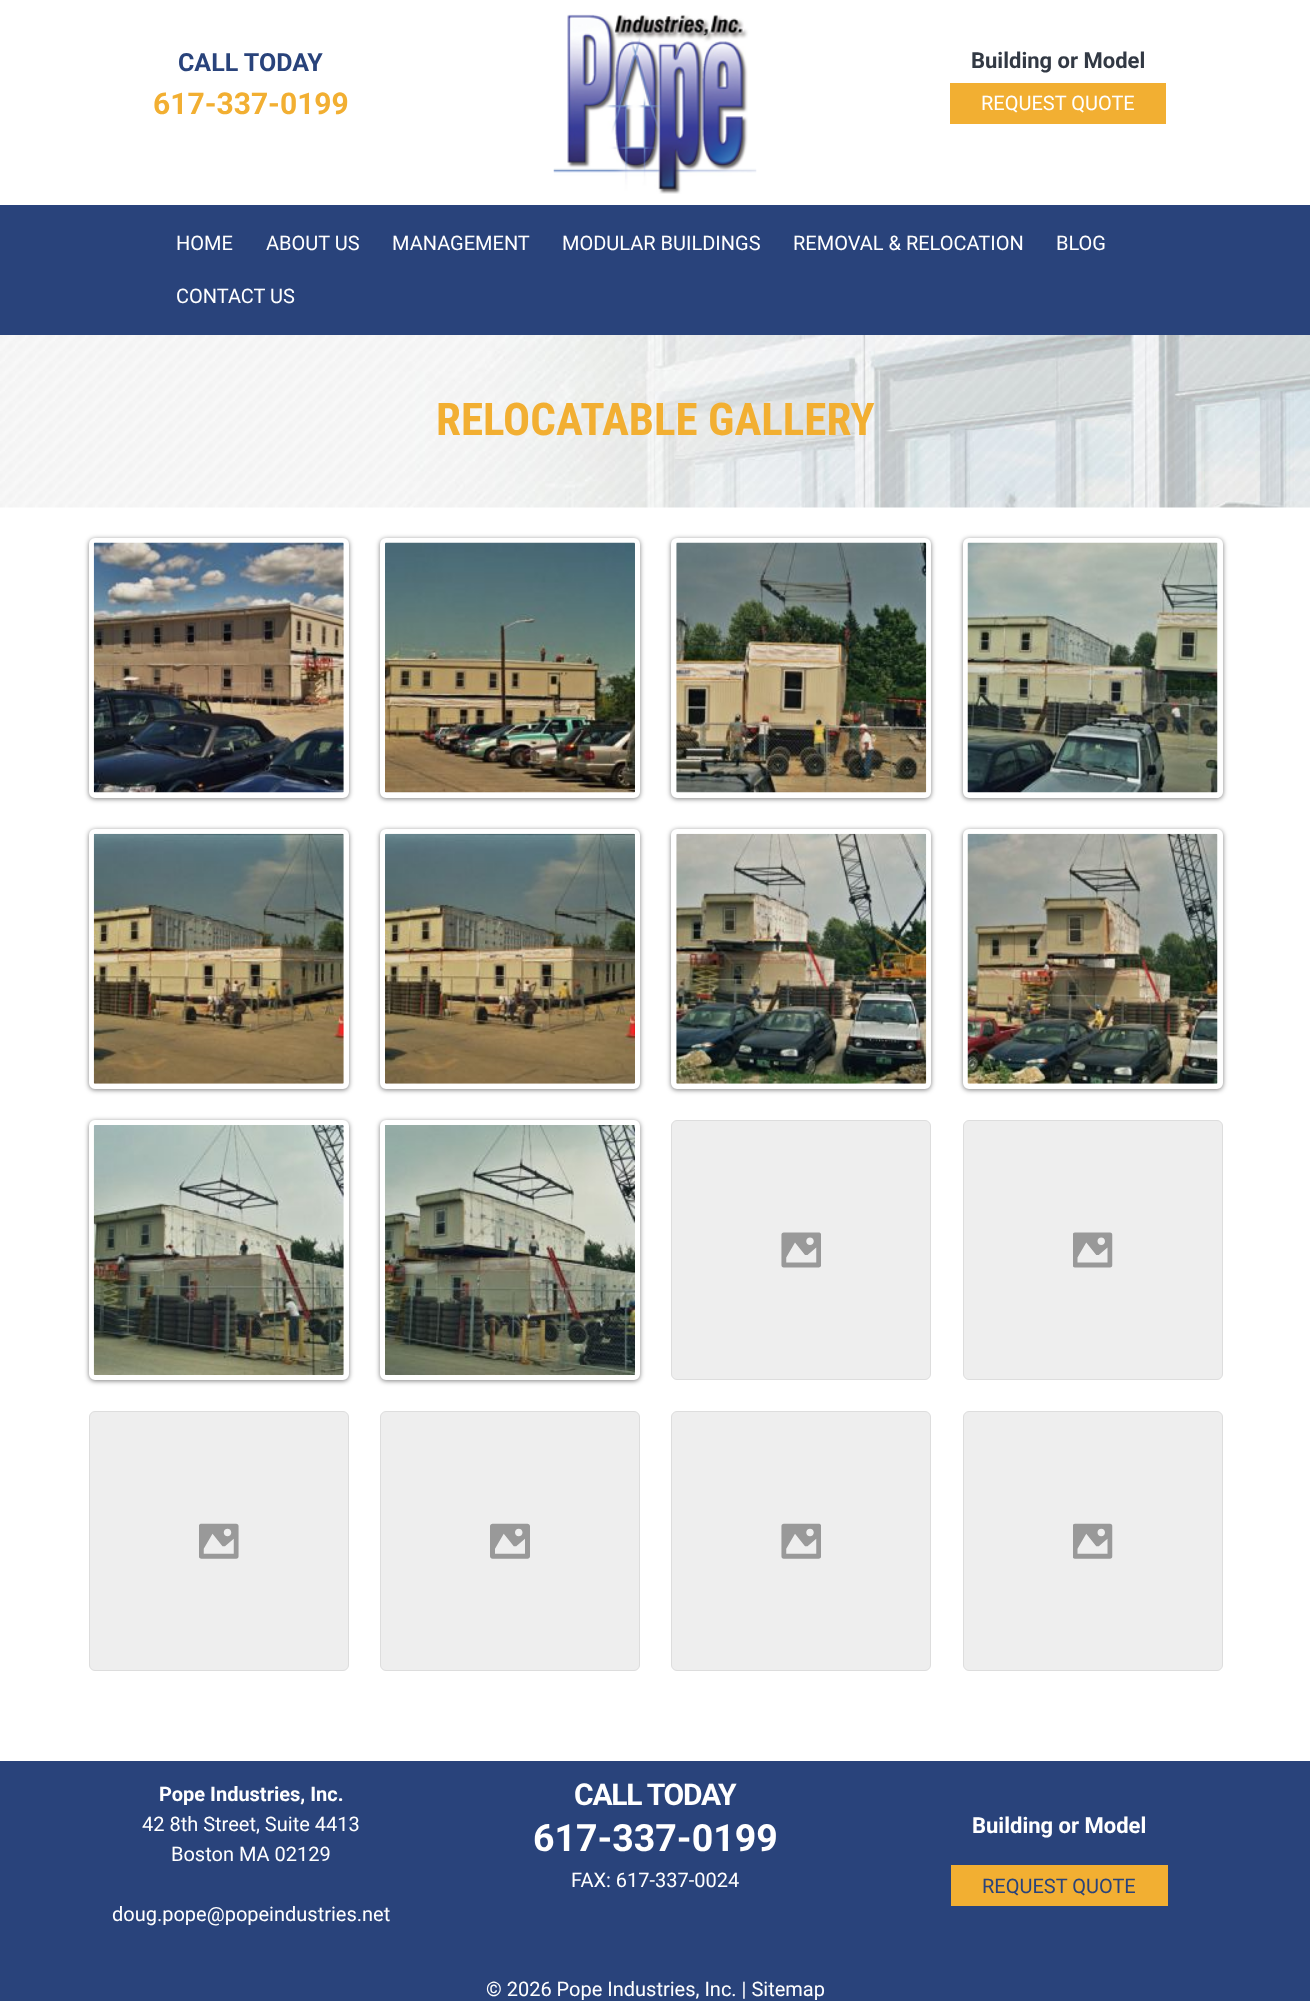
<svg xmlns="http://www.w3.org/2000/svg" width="1310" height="2001">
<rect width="100%" height="100%" fill="#fff"/>
<text x="178" y="71" style="font-family:Roboto;font-size:25px;font-weight:bold;fill:#29437b">CALL TODAY</text>
<text x="153" y="114" style="font-family:Roboto;font-size:30px;font-weight:bold;fill:#f2af32">617-337-0199</text>
<image x="553" y="14" width="204" height="180" href="media/1.png"/>
<text x="971" y="68" style="font-family:Roboto;font-size:22px;font-weight:bold;fill:#323944">Building or Model</text>
<rect x="950" y="83" width="216" height="41" fill="#f2af32"/>
<text x="981" y="110" style="font-family:Roboto;font-size:20px;fill:#fff">REQUEST QUOTE</text>
<rect y="205" width="1310" height="130" fill="#29437b"/>
<text x="176" y="250" style="font-family:Roboto;font-size:20px;fill:#fff">HOME</text>
<text x="266" y="250" style="font-family:Roboto;font-size:20px;fill:#fff">ABOUT US</text>
<text x="392" y="250" style="font-family:Roboto;font-size:20px;fill:#fff">MANAGEMENT</text>
<text x="562" y="250" style="font-family:Roboto;font-size:20px;fill:#fff">MODULAR BUILDINGS</text>
<text x="793" y="250" style="font-family:Roboto;font-size:20px;fill:#fff">REMOVAL &amp; RELOCATION</text>
<text x="1056" y="250" style="font-family:Roboto;font-size:20px;fill:#fff">BLOG</text>
<text x="176" y="303" style="font-family:Roboto;font-size:20px;fill:#fff">CONTACT US</text>
<image x="0" y="335" width="1310" height="173" href="media/2.png"/>
<text x="436" y="435" style="font-family:Roboto Condensed;font-size:45px;font-weight:bold;fill:#f2af32">RELOCATABLE GALLERY</text>
<rect x="89" y="539" width="260" height="260" rx="6" fill="#00000080" filter="blur(2.5px)"/>
<rect x="91.5" y="540.5" width="255" height="255" rx="3.5" fill="#fff" stroke="#fff" stroke-width="5"/>
<image x="93" y="542" width="251" height="251" href="media/3.png"/>
<rect x="380" y="539" width="260" height="260" rx="6" fill="#00000080" filter="blur(2.5px)"/>
<rect x="382.5" y="540.5" width="255" height="255" rx="3.5" fill="#fff" stroke="#fff" stroke-width="5"/>
<image x="385" y="542" width="250" height="251" href="media/4.png"/>
<rect x="671" y="539" width="260" height="260" rx="6" fill="#00000080" filter="blur(2.5px)"/>
<rect x="673.5" y="540.5" width="255" height="255" rx="3.5" fill="#fff" stroke="#fff" stroke-width="5"/>
<image x="676" y="542" width="251" height="251" href="media/5.png"/>
<rect x="963" y="539" width="260" height="260" rx="6" fill="#00000080" filter="blur(2.5px)"/>
<rect x="965.5" y="540.5" width="255" height="255" rx="3.5" fill="#fff" stroke="#fff" stroke-width="5"/>
<image x="967" y="542" width="251" height="251" href="media/6.png"/>
<rect x="89" y="830" width="260" height="260" rx="6" fill="#00000080" filter="blur(2.5px)"/>
<rect x="91.5" y="831.5" width="255" height="255" rx="3.5" fill="#fff" stroke="#fff" stroke-width="5"/>
<image x="93" y="833" width="251" height="251" href="media/7.png"/>
<rect x="380" y="830" width="260" height="260" rx="6" fill="#00000080" filter="blur(2.5px)"/>
<rect x="382.5" y="831.5" width="255" height="255" rx="3.5" fill="#fff" stroke="#fff" stroke-width="5"/>
<image x="385" y="833" width="250" height="251" href="media/8.png"/>
<rect x="671" y="830" width="260" height="260" rx="6" fill="#00000080" filter="blur(2.5px)"/>
<rect x="673.5" y="831.5" width="255" height="255" rx="3.5" fill="#fff" stroke="#fff" stroke-width="5"/>
<image x="676" y="833" width="251" height="251" href="media/9.png"/>
<rect x="963" y="830" width="260" height="260" rx="6" fill="#00000080" filter="blur(2.5px)"/>
<rect x="965.5" y="831.5" width="255" height="255" rx="3.5" fill="#fff" stroke="#fff" stroke-width="5"/>
<image x="967" y="833" width="251" height="251" href="media/10.png"/>
<rect x="89" y="1121" width="260" height="260" rx="6" fill="#00000080" filter="blur(2.5px)"/>
<rect x="91.5" y="1122.5" width="255" height="255" rx="3.5" fill="#fff" stroke="#fff" stroke-width="5"/>
<image x="93" y="1125" width="251" height="250" href="media/11.png"/>
<rect x="380" y="1121" width="260" height="260" rx="6" fill="#00000080" filter="blur(2.5px)"/>
<rect x="382.5" y="1122.5" width="255" height="255" rx="3.5" fill="none" stroke="#fff" stroke-width="5"/>
<image x="385" y="1125" width="250" height="250" href="media/12.png"/>
<rect x="671.5" y="1120.5" width="259" height="259" rx="5.5" fill="#eee" stroke="#ddd"/>
<image x="781" y="1232" width="40" height="36" href="media/13.png"/>
<rect x="963.5" y="1120.5" width="259" height="259" rx="5.5" fill="#eee" stroke="#ddd"/>
<image x="1073" y="1232" width="40" height="36" href="media/14.png"/>
<rect x="89.5" y="1411.5" width="259" height="259" rx="5.5" fill="#eee" stroke="#ddd"/>
<image x="199" y="1523" width="40" height="36" href="media/15.png"/>
<rect x="380.5" y="1411.5" width="259" height="259" rx="5.5" fill="#eee" stroke="#ddd"/>
<image x="490" y="1523" width="40" height="36" href="media/16.png"/>
<rect x="671.5" y="1411.5" width="259" height="259" rx="5.5" fill="#eee" stroke="#ddd"/>
<image x="781" y="1523" width="40" height="36" href="media/17.png"/>
<rect x="963.5" y="1411.5" width="259" height="259" rx="5.5" fill="#eee" stroke="#ddd"/>
<image x="1073" y="1523" width="40" height="36" href="media/18.png"/>
<rect y="1761" width="1310" height="240" fill="#29437b"/>
<text x="159" y="1801" style="font-family:Roboto;font-size:20px;font-weight:bold;fill:#fff">Pope Industries, Inc.</text>
<text x="142" y="1831" style="font-family:Roboto;font-size:20px;fill:#fff">42 8th Street, Suite 4413</text>
<text x="171" y="1861" style="font-family:Roboto;font-size:20px;fill:#fff">Boston MA 02129</text>
<text x="112" y="1921" style="font-family:Roboto;font-size:20px;fill:#fff">doug.pope@popeindustries.net</text>
<text x="574" y="1805" style="font-family:Roboto;font-size:30px;font-weight:bold;letter-spacing:-1.25px;fill:#fff">CALL TODAY</text>
<text x="533" y="1851" style="font-family:Roboto;font-size:37.5px;font-weight:bold;fill:#fff">617-337-0199</text>
<text x="571" y="1887" style="font-family:Roboto;font-size:20px;fill:#fff">FAX: ‍617-337-0024</text>
<text x="972" y="1833" style="font-family:Roboto;font-size:22px;font-weight:bold;fill:#fff">Building or Model</text>
<rect x="951" y="1865" width="217" height="41" fill="#f2af32"/>
<text x="982" y="1893" style="font-family:Roboto;font-size:20px;fill:#29437b">REQUEST QUOTE</text>
<text x="486" y="1996" style="font-family:Roboto;font-size:20px;fill:#fff">© 2026 Pope Industries, Inc. | Sitemap</text>
</svg>
